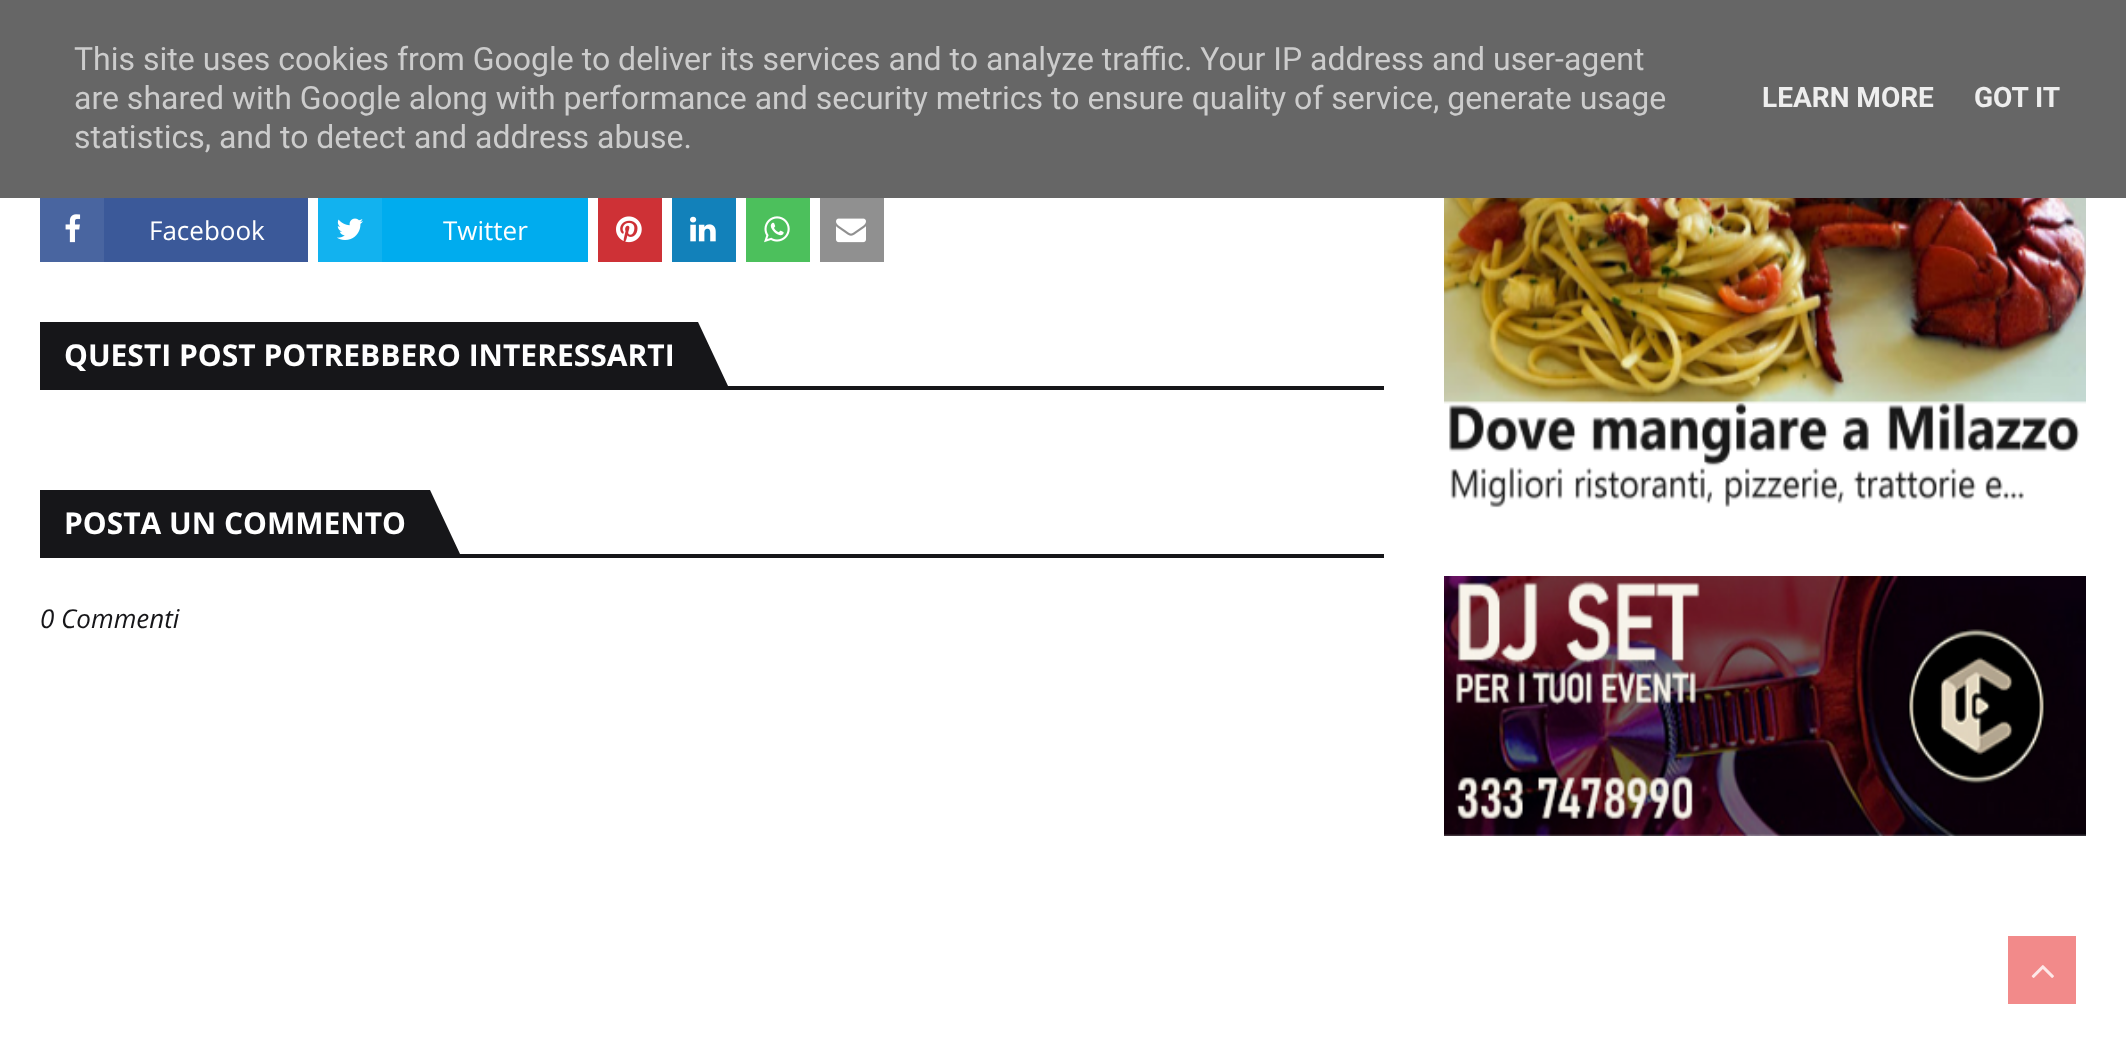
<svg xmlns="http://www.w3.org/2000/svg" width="2126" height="1054">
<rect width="100%" height="100%" fill="#fff"/>
<rect width="2126" height="198" fill="#666"/>
<text x="74" y="70" style="font-family:Roboto;font-size:32px;fill:#ccc">This site uses cookies from Google to deliver its services and to analyze traffic. Your IP address and user-agent</text>
<text x="74" y="109" style="font-family:Roboto;font-size:32px;fill:#ccc">are shared with Google along with performance and security metrics to ensure quality of service, generate usage</text>
<text x="74" y="148" style="font-family:Roboto;font-size:32px;fill:#ccc">statistics, and to detect and address abuse.</text>
<text x="1762" y="107" style="font-family:Roboto;font-size:28px;font-weight:bold;fill:#eee">LEARN MORE</text>
<text x="1974" y="107" style="font-family:Roboto;font-size:28px;font-weight:bold;fill:#eee">GOT IT</text>
<rect x="104" y="198" width="204" height="64" fill="#3b5999"/>
<rect x="40" y="198" width="64" height="64" fill="#4965a0"/>
<image x="65" y="214" width="16" height="29" href="media/1.png"/>
<text x="149" y="240" style="font-family:Open Sans;font-size:26px;fill:#fff">Facebook</text>
<rect x="382" y="198" width="206" height="64" fill="#00acee"/>
<rect x="318" y="198" width="64" height="64" fill="#12b2ef"/>
<image x="337" y="218" width="26" height="22" href="media/2.png"/>
<text x="443" y="240" style="font-family:Open Sans;font-size:26px;fill:#fff">Twitter</text>
<rect x="598" y="198" width="64" height="64" fill="#ce3136"/>
<image x="616" y="216" width="26" height="27" href="media/3.png"/>
<rect x="672" y="198" width="64" height="64" fill="#1281ba"/>
<image x="690" y="216" width="26" height="26" href="media/4.png"/>
<rect x="746" y="198" width="64" height="64" fill="#4cc05c"/>
<image x="764" y="216" width="26" height="27" href="media/5.png"/>
<rect x="820" y="198" width="64" height="64" fill="#909090"/>
<image x="836" y="218" width="30" height="25" href="media/6.png"/>
<rect x="40" y="386" width="1344" height="4" fill="#161619"/>
<rect x="40" y="322" width="658" height="64" fill="#161619"/>
<text x="64" y="366" style="font-family:Open Sans;font-size:30px;font-weight:bold;fill:#fff">QUESTI POST POTREBBERO INTERESSARTI</text>
<path d="M698 386v-64l30 64z" fill="#161619"/>
<rect x="40" y="554" width="1344" height="4" fill="#161619"/>
<rect x="40" y="490" width="390" height="64" fill="#161619"/>
<text x="64" y="534" style="font-family:Open Sans;font-size:30px;font-weight:bold;fill:#fff">POSTA UN COMMENTO</text>
<path d="M430 554v-64l30 64z" fill="#161619"/>
<text x="40" y="628" style="font-family:Open Sans;font-size:26px;font-style:italic;fill:#161619">0 Commenti</text>
<image x="1444" y="198" width="642" height="310" href="media/7.png"/>
<image x="1444" y="576" width="642" height="260" href="media/8.png"/>
<rect x="2008" y="936" width="68" height="68" fill="#f28a8a"/>
<image x="2031" y="965" width="23" height="13" href="media/9.png"/>
</svg>
